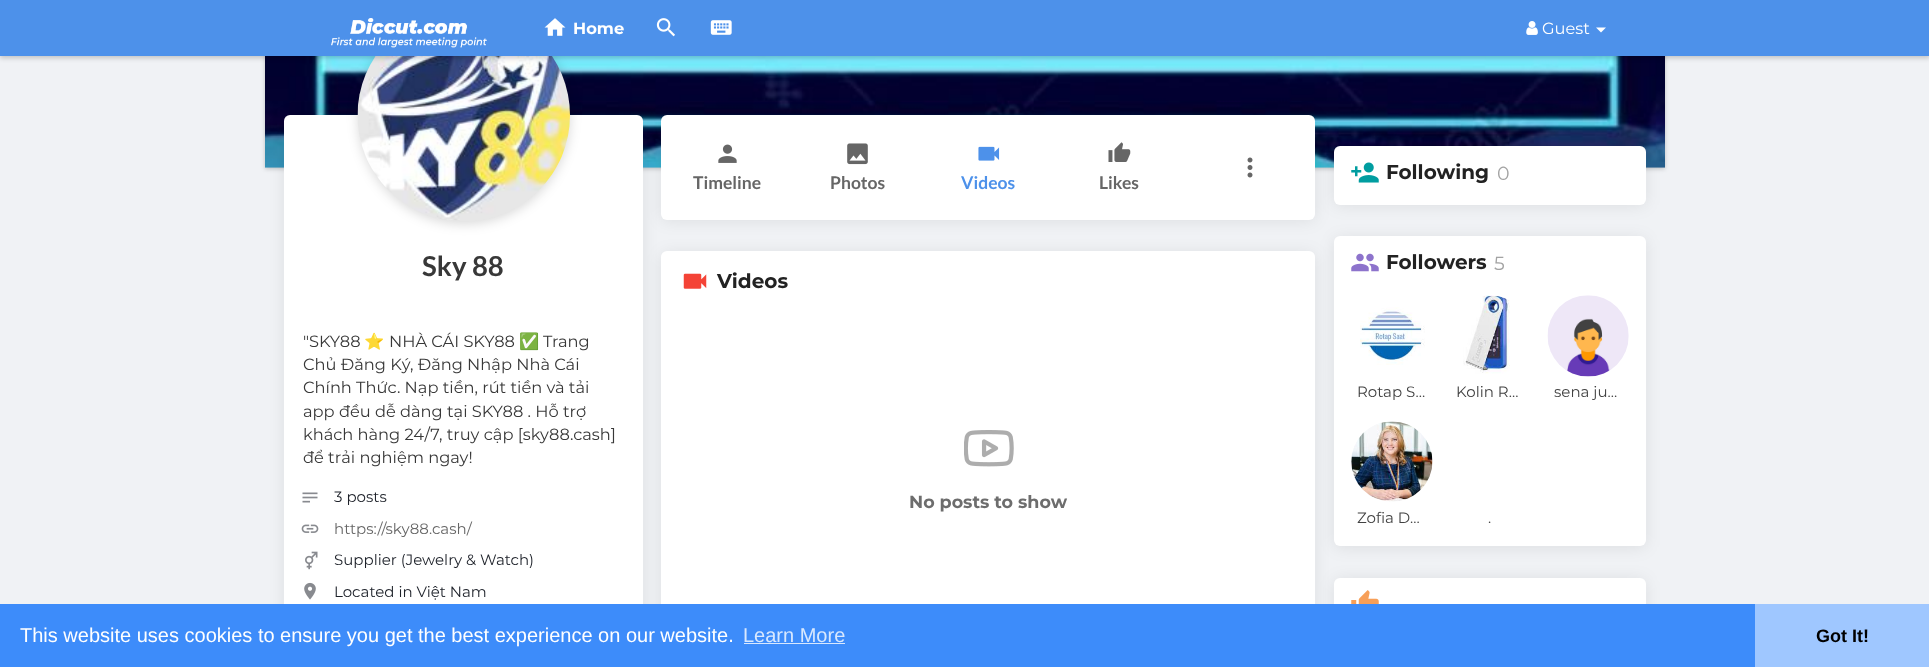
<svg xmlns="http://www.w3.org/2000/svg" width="1929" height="667">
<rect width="100%" height="100%" fill="#f0f2f5"/>
<rect x="265" y="-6" width="1400" height="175" fill="#00000033" filter="blur(2px)"/>
<image x="265" y="56" width="1400" height="112" href="media/6.png"/>
<rect x="284" y="116" width="359" height="549" rx="6" fill="#00000014" filter="blur(8px)"/>
<rect x="284" y="115" width="359" height="549" rx="6" fill="#fff"/>
<rect x="358" y="11" width="212" height="213" rx="106" fill="#00000026" filter="blur(6px)"/>
<image x="357" y="56" width="213" height="165" href="media/7.png"/>
<rect y="1" width="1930" height="57" fill="#00000033" filter="blur(2.5px)"/>
<rect width="1929" height="56" fill="#4d91ea"/>
<image x="331" y="18" width="156" height="30" href="media/1.png"/>
<image x="544" y="18" width="22" height="18" href="media/2.png"/>
<text x="573" y="34" style="font-family:Montserrat;font-size:16.25px;font-weight:bold;fill:#fff">Home</text>
<image x="656" y="18" width="19" height="19" href="media/3.png"/>
<image x="710" y="20" width="22" height="15" href="media/4.png"/>
<image x="1526" y="21" width="12" height="14" href="media/5.png"/>
<text x="1542" y="34" style="font-family:Montserrat;font-size:16.25px;fill:#fff">Guest</text>
<path d="M1596 27.5h10l-5 5z" fill="#fff"/>
<text x="422" y="276" style="font-family:Lato;font-size:27.5px;font-weight:bold;fill:#383838">Sky 88</text>
<text x="303" y="347" style="font-family:Montserrat;font-size:16.25px;fill:#383838">"SKY88</text>
<text x="364" y="347" style="font-family:Noto Color Emoji;font-size:16.25px;fill:#383838">⭐</text>
<text x="389" y="347" style="font-family:Montserrat;font-size:16.25px;fill:#383838">NHÀ CÁI SKY88</text>
<text x="519" y="347" style="font-family:Noto Color Emoji;font-size:16.25px;fill:#383838">✅</text>
<text x="543" y="347" style="font-family:Montserrat;font-size:16.25px;fill:#383838">Trang</text>
<text x="303" y="370" style="font-family:Montserrat;font-size:16.25px;fill:#383838">Chủ Đăng Ký, Đăng Nhập Nhà Cái</text>
<text x="303" y="393" style="font-family:Montserrat;font-size:16.25px;fill:#383838">Chính Thức. Nạp tiền, rút tiền và tải</text>
<text x="303" y="417" style="font-family:Montserrat;font-size:16.25px;fill:#383838">app đều dễ dàng tại SKY88 . Hỗ trợ</text>
<text x="303" y="440" style="font-family:Montserrat;font-size:16.25px;fill:#383838">khách hàng 24/7, truy cập [sky88.cash]</text>
<text x="303" y="463" style="font-family:Montserrat;font-size:16.25px;fill:#383838">để trải nghiệm ngay!</text>
<image x="302" y="492" width="16" height="11" href="media/8.png"/>
<text x="334" y="502" style="font-family:Montserrat;font-size:15px;fill:#1d2129">3 posts</text>
<image x="301" y="524" width="18" height="9" href="media/9.png"/>
<text x="334" y="534" style="font-family:Montserrat;font-size:15px;fill:#666">https://sky88.cash/</text>
<image x="305" y="551" width="13" height="19" href="media/10.png"/>
<text x="334" y="565" style="font-family:Montserrat;font-size:15px;fill:#1d2129">Supplier (Jewelry &amp; Watch)</text>
<image x="304" y="582" width="12" height="18" href="media/11.png"/>
<text x="334" y="597" style="font-family:Montserrat;font-size:15px;fill:#1d2129">Located in Việt Nam</text>
<rect x="661" y="116" width="654" height="105" rx="6" fill="#00000014" filter="blur(8px)"/>
<rect x="661" y="115" width="654" height="105" rx="6" fill="#fff"/>
<image x="1247" y="157" width="6" height="21" href="media/12.png"/>
<image x="718" y="144" width="19" height="19" href="media/13.png"/>
<text x="693" y="189" style="font-family:Lato;font-size:17.5px;font-weight:bold;fill:#666">Timeline</text>
<image x="847" y="143" width="21" height="22" href="media/14.png"/>
<text x="830" y="189" style="font-family:Lato;font-size:17.5px;font-weight:bold;fill:#666">Photos</text>
<image x="978" y="146" width="22" height="15" href="media/15.png"/>
<text x="961" y="189" style="font-family:Lato;font-size:17.5px;font-weight:bold;fill:#4d91ea">Videos</text>
<image x="1108" y="142" width="23" height="20" href="media/16.png"/>
<text x="1099" y="189" style="font-family:Lato;font-size:17.5px;font-weight:bold;fill:#666">Likes</text>
<rect x="661" y="253" width="654" height="366" rx="6" fill="#00000014" filter="blur(8px)"/>
<rect x="661" y="251" width="654" height="367" rx="6" fill="#fff"/>
<image x="683" y="273" width="24" height="16" href="media/17.png"/>
<text x="717" y="288" style="font-family:Montserrat;font-size:20px;font-weight:bold;fill:#222">Videos</text>
<image x="964" y="430" width="50" height="37" href="media/18.png"/>
<text x="909" y="508" style="font-family:Montserrat;font-size:17.5px;font-weight:bold;fill:#6d6d6d">No posts to show</text>
<rect x="1334" y="148" width="312" height="58" rx="6" fill="#00000014" filter="blur(8px)"/>
<rect x="1334" y="146" width="312" height="59" rx="6" fill="#fff"/>
<image x="1351" y="162" width="28" height="21" href="media/19.png"/>
<text x="1386" y="179" style="font-family:Montserrat;font-size:20px;font-weight:bold;fill:#222">Following</text>
<text x="1497" y="180" style="font-family:Montserrat;font-size:19px;fill:#a3a3a3">0</text>
<rect x="1334" y="238" width="312" height="310" rx="6" fill="#00000014" filter="blur(8px)"/>
<rect x="1334" y="236" width="312" height="310" rx="6" fill="#fff"/>
<image x="1351" y="253" width="28" height="19" href="media/20.png"/>
<text x="1386" y="269" style="font-family:Montserrat;font-size:20px;font-weight:bold;fill:#222">Followers</text>
<text x="1494" y="270" style="font-family:Montserrat;font-size:19px;fill:#a3a3a3">5</text>
<image x="1360" y="307" width="65" height="58" href="media/21.png"/>
<text x="1357" y="397" style="font-family:Montserrat;font-size:15px;fill:#424242">Rotap S…</text>
<image x="1463" y="295" width="47" height="79" href="media/22.png"/>
<text x="1456" y="397" style="font-family:Montserrat;font-size:15px;fill:#424242">Kolin R…</text>
<image x="1547" y="295" width="82" height="82" href="media/23.png"/>
<text x="1554" y="397" style="font-family:Montserrat;font-size:15px;fill:#424242">sena ju…</text>
<image x="1351" y="421" width="82" height="81" href="media/24.png"/>
<text x="1357" y="523" style="font-family:Montserrat;font-size:15px;fill:#424242">Zofia D…</text>
<text x="1488" y="523" style="font-family:Montserrat;font-size:15px;fill:#424242">.</text>
<rect x="1334" y="579" width="312" height="59" rx="6" fill="#00000014" filter="blur(8px)"/>
<rect x="1334" y="578" width="312" height="58" rx="6" fill="#fff"/>
<image x="1351" y="590" width="28" height="14" href="media/25.png"/>
<rect y="604" width="1755" height="63" fill="#3d8cfa"/>
<text x="20" y="642" style="font-family:Liberation Sans;font-size:20px;fill:#fff">This website uses cookies to ensure you get the best experience on our website.</text>
<text x="743" y="642" style="font-family:Liberation Sans;font-size:20px;fill:#d8e8fe">Learn More</text>
<rect x="744" y="643" width="101" height="1" fill="#d8e8fe"/>
<rect x="1755" y="604" width="174" height="63" fill="#9fc7ff"/>
<text x="1816" y="642" style="font-family:Liberation Sans;font-size:18px;font-weight:bold;fill:#000">Got It!</text>
</svg>
